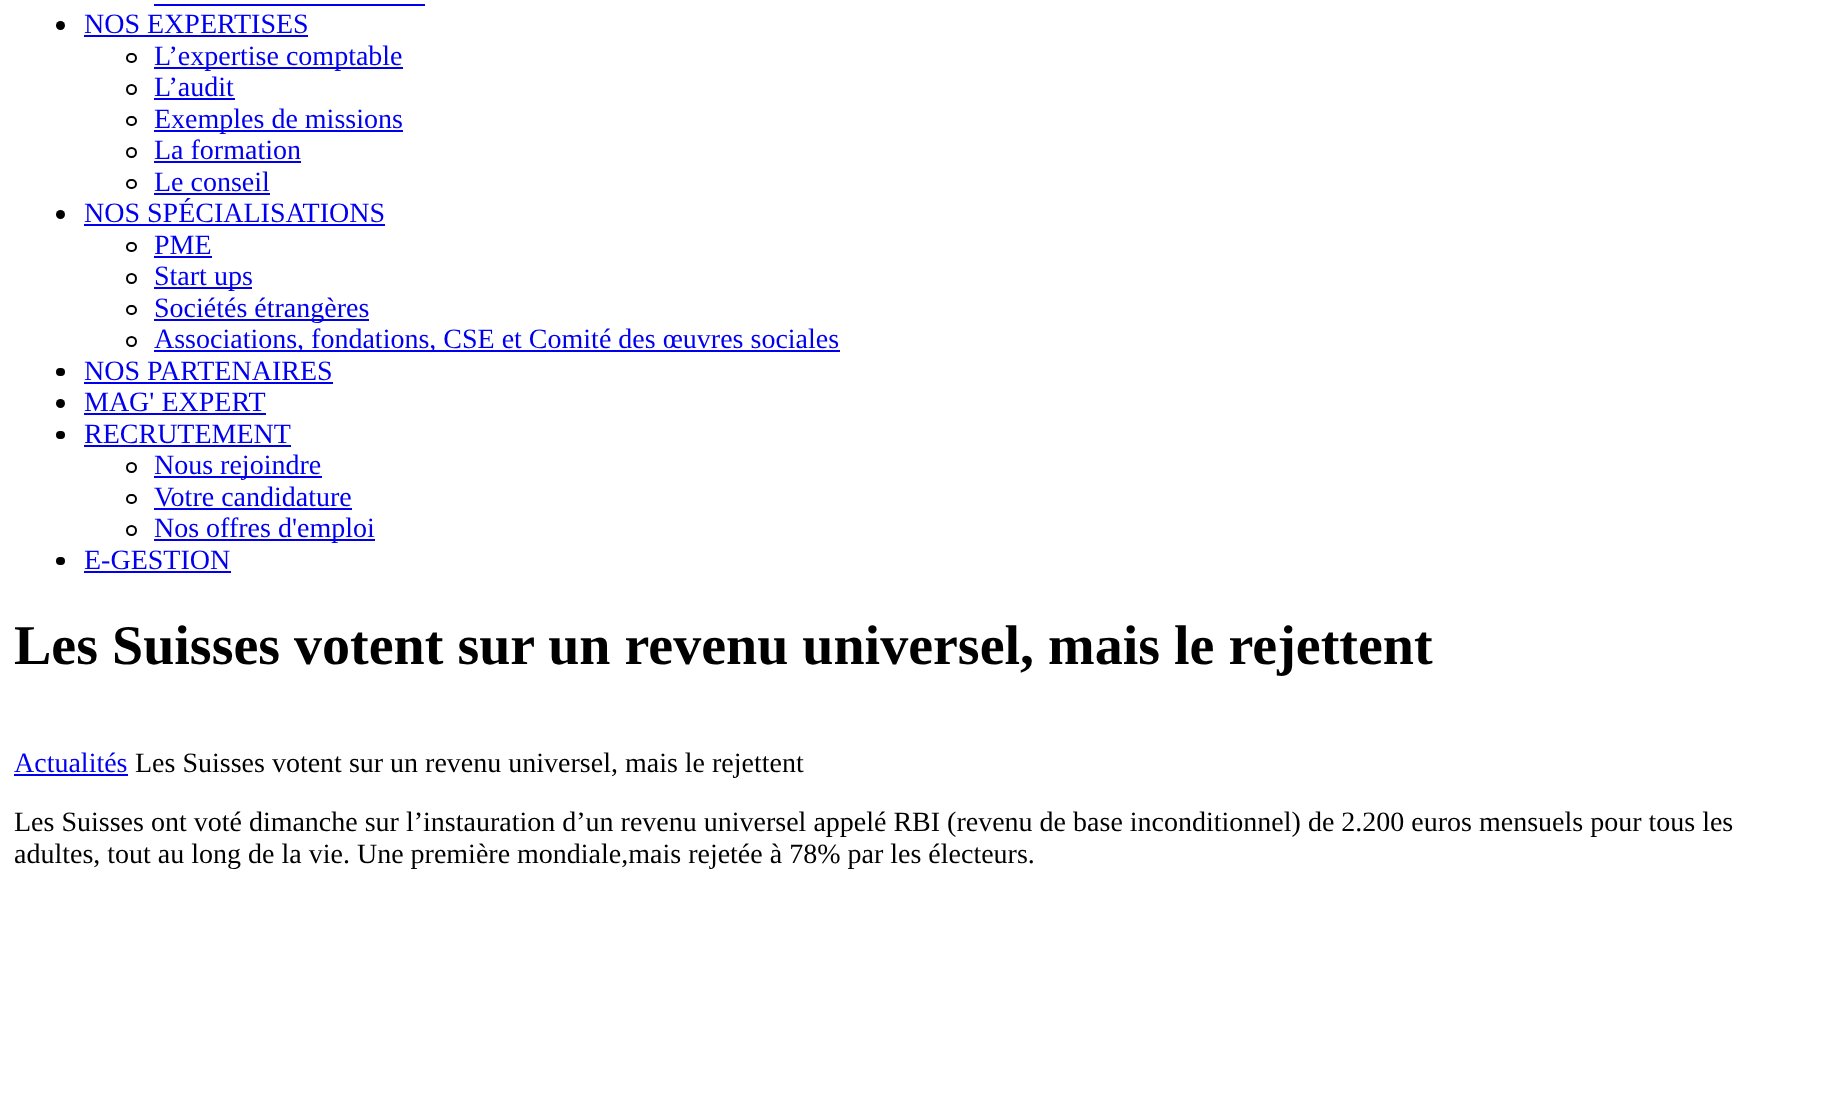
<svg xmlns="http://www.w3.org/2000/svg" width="1836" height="1096">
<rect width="100%" height="100%" fill="#fff"/>
<rect x="154" y="4" width="271" height="2" fill="#00e"/>
<circle cx="60.5" cy="25.5" r="4.5" fill="#000"/>
<text x="84" y="33" style="font-family:Liberation Serif;font-size:28px;fill:#00e">NOS EXPERTISES</text>
<rect x="84" y="35" width="224" height="2" fill="#00e"/>
<rect x="127" y="54" width="9" height="8" rx="4" fill="none" stroke="#000" stroke-width="2"/>
<rect x="154" y="67" width="249" height="2" fill="#00e"/>
<text x="154" y="65" style="font-family:Liberation Serif;font-size:28px;fill:#00e">L’expertise comptable</text>
<circle cx="131.5" cy="89.5" r="4.5" fill="none" stroke="#000" stroke-width="2"/>
<text x="154" y="96" style="font-family:Liberation Serif;font-size:28px;fill:#00e">L’audit</text>
<rect x="154" y="98" width="81" height="2" fill="#00e"/>
<rect x="127" y="117" width="9" height="8" rx="4" fill="none" stroke="#000" stroke-width="2"/>
<rect x="154" y="130" width="249" height="2" fill="#00e"/>
<text x="154" y="128" style="font-family:Liberation Serif;font-size:28px;fill:#00e">Exemples de missions</text>
<circle cx="131.5" cy="152.5" r="4.5" fill="none" stroke="#000" stroke-width="2"/>
<text x="154" y="159" style="font-family:Liberation Serif;font-size:28px;fill:#00e">La formation</text>
<rect x="154" y="161" width="147" height="2" fill="#00e"/>
<rect x="127" y="180" width="9" height="8" rx="4" fill="none" stroke="#000" stroke-width="2"/>
<text x="154" y="191" style="font-family:Liberation Serif;font-size:28px;fill:#00e">Le conseil</text>
<rect x="154" y="193" width="116" height="2" fill="#00e"/>
<circle cx="60.5" cy="214.5" r="4.5" fill="#000"/>
<text x="84" y="222" style="font-family:Liberation Serif;font-size:28px;fill:#00e">NOS SPÉCIALISATIONS</text>
<rect x="84" y="224" width="301" height="2" fill="#00e"/>
<rect x="127" y="243" width="9" height="8" rx="4" fill="none" stroke="#000" stroke-width="2"/>
<text x="154" y="254" style="font-family:Liberation Serif;font-size:28px;fill:#00e">PME</text>
<rect x="154" y="256" width="58" height="2" fill="#00e"/>
<circle cx="131.5" cy="278.5" r="4.5" fill="none" stroke="#000" stroke-width="2"/>
<rect x="154" y="287" width="98" height="2" fill="#00e"/>
<text x="154" y="285" style="font-family:Liberation Serif;font-size:28px;fill:#00e">Start ups</text>
<rect x="127" y="306" width="9" height="8" rx="4" fill="none" stroke="#000" stroke-width="2"/>
<rect x="154" y="319" width="215" height="2" fill="#00e"/>
<text x="154" y="317" style="font-family:Liberation Serif;font-size:28px;fill:#00e">Sociétés étrangères</text>
<circle cx="131.5" cy="341.5" r="4.5" fill="none" stroke="#000" stroke-width="2"/>
<rect x="154" y="350" width="686" height="2" fill="#00e"/>
<text x="154" y="348" style="font-family:Liberation Serif;font-size:28px;fill:#00e">Associations, fondations, CSE et Comité des œuvres sociales</text>
<rect x="56" y="368" width="9" height="8" rx="4" fill="#000"/>
<text x="84" y="380" style="font-family:Liberation Serif;font-size:28px;fill:#00e">NOS PARTENAIRES</text>
<rect x="84" y="382" width="249" height="2" fill="#00e"/>
<circle cx="60.5" cy="403.5" r="4.5" fill="#000"/>
<text x="84" y="411" style="font-family:Liberation Serif;font-size:28px;fill:#00e">MAG' EXPERT</text>
<rect x="84" y="413" width="182" height="2" fill="#00e"/>
<rect x="56" y="431" width="9" height="8" rx="4" fill="#000"/>
<text x="84" y="443" style="font-family:Liberation Serif;font-size:28px;fill:#00e">RECRUTEMENT</text>
<rect x="84" y="445" width="207" height="2" fill="#00e"/>
<circle cx="131.5" cy="467.5" r="4.5" fill="none" stroke="#000" stroke-width="2"/>
<rect x="154" y="476" width="168" height="2" fill="#00e"/>
<text x="154" y="474" style="font-family:Liberation Serif;font-size:28px;fill:#00e">Nous rejoindre</text>
<rect x="127" y="495" width="9" height="8" rx="4" fill="none" stroke="#000" stroke-width="2"/>
<text x="154" y="506" style="font-family:Liberation Serif;font-size:28px;fill:#00e">Votre candidature</text>
<rect x="154" y="508" width="198" height="2" fill="#00e"/>
<circle cx="131.5" cy="530.5" r="4.5" fill="none" stroke="#000" stroke-width="2"/>
<rect x="154" y="539" width="221" height="2" fill="#00e"/>
<text x="154" y="537" style="font-family:Liberation Serif;font-size:28px;fill:#00e">Nos offres d'emploi</text>
<rect x="56" y="557" width="9" height="8" rx="4" fill="#000"/>
<text x="84" y="569" style="font-family:Liberation Serif;font-size:28px;fill:#00e">E-GESTION</text>
<rect x="84" y="571" width="147" height="2" fill="#00e"/>
<text x="14" y="664" style="font-family:Liberation Serif;font-size:56px;font-weight:bold;fill:#000">Les Suisses votent sur un revenu universel, mais le rejettent</text>
<text x="14" y="772" style="font-family:Liberation Serif;font-size:28px;fill:#00e">Actualités</text>
<rect x="14" y="774" width="114" height="2" fill="#00e"/>
<text x="135" y="772" style="font-family:Liberation Serif;font-size:28px;fill:#000">Les Suisses votent sur un revenu universel, mais le rejettent</text>
<text x="14" y="831" style="font-family:Liberation Serif;font-size:28px;fill:#000">Les Suisses ont voté dimanche sur l’instauration d’un revenu universel appelé RBI (revenu de base inconditionnel) de 2.200 euros mensuels pour tous les</text>
<text x="14" y="863" style="font-family:Liberation Serif;font-size:28px;fill:#000">adultes, tout au long de la vie. Une première mondiale,mais rejetée à 78% par les électeurs.</text>
</svg>
